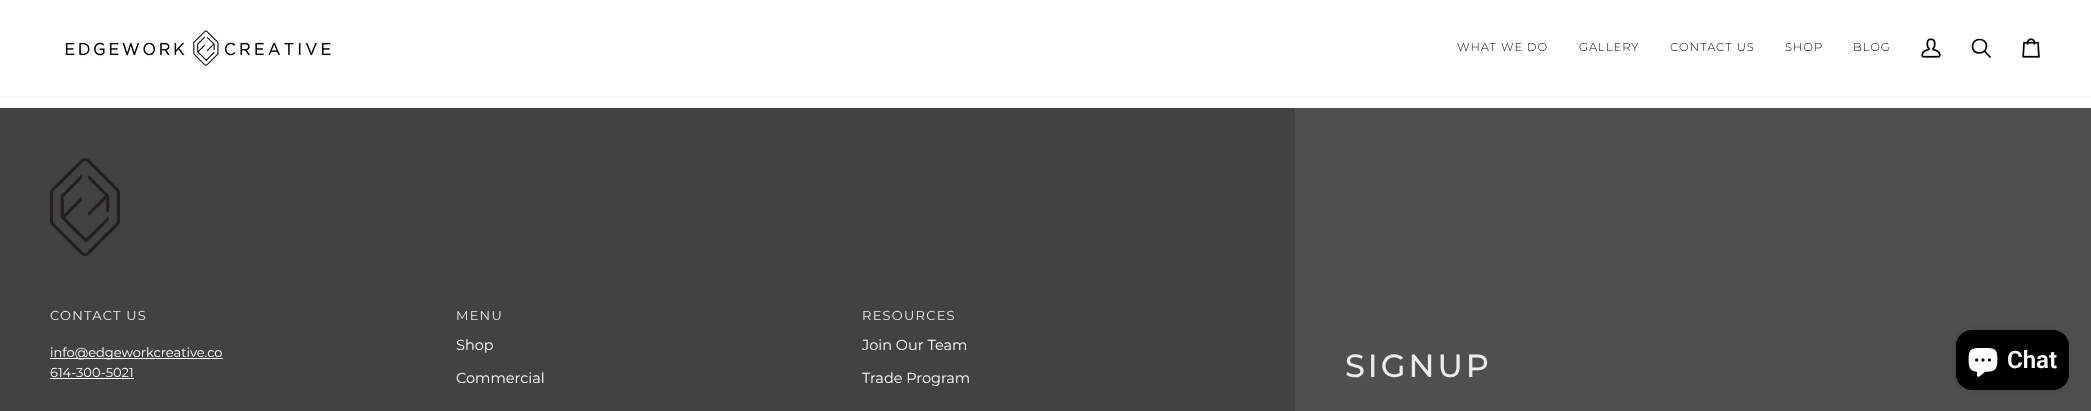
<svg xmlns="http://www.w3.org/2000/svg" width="2091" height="411">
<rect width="100%" height="100%" fill="#fff"/>
<rect y="96" width="2091" height="1" fill="#f7f5f4"/>
<image x="65" y="30" width="266" height="36" href="media/1.png"/>
<text x="1457" y="51" style="font-family:Montserrat;font-size:11.5px;font-weight:300;letter-spacing:1px;fill:#000">WHAT WE DO</text>
<text x="1579" y="51" style="font-family:Montserrat;font-size:11.5px;font-weight:300;letter-spacing:1px;fill:#000">GALLERY</text>
<text x="1670" y="51" style="font-family:Montserrat;font-size:11.5px;font-weight:300;letter-spacing:1px;fill:#000">CONTACT US</text>
<text x="1785" y="51" style="font-family:Montserrat;font-size:11.5px;font-weight:300;letter-spacing:1px;fill:#000">SHOP</text>
<text x="1853" y="51" style="font-family:Montserrat;font-size:11.5px;font-weight:300;letter-spacing:1px;fill:#000">BLOG</text>
<image x="1921" y="38" width="20" height="20" href="media/2.png"/>
<path d="M1986.5 46c0 9-14 9.5-14 .5c-.5-9 14-9.5 14-.5zm3.5 11l-5.5-6z" fill="none" stroke="#000" stroke-width="1.7" stroke-linecap="round" stroke-linejoin="round"/>
<image x="2022" y="38" width="18" height="20" href="media/3.png"/>
<rect y="108" width="1295" height="303" fill="#424242"/>
<image x="50" y="158" width="70" height="98" href="media/4.png"/>
<text x="50" y="320" style="font-family:Montserrat;font-size:13px;font-weight:100;letter-spacing:1.25px;fill:#ececec">CONTACT US</text>
<rect x="50" y="358" width="173" height="1" fill="#fff"/>
<text x="50" y="357" style="font-family:Montserrat;font-size:13px;font-weight:100;fill:#fff">info@edgeworkcreative.co</text>
<text x="50" y="377" style="font-family:Montserrat;font-size:13px;font-weight:100;fill:#fff">614-300-5021</text>
<rect x="50" y="378" width="84" height="1" fill="#fff"/>
<text x="456" y="320" style="font-family:Montserrat;font-size:13px;font-weight:100;letter-spacing:1.25px;fill:#ececec">MENU</text>
<text x="456" y="350" style="font-family:Montserrat;font-size:14.5px;font-weight:100;fill:#fff">Shop</text>
<text x="456" y="383" style="font-family:Montserrat;font-size:14.5px;font-weight:100;fill:#fff">Commercial</text>
<text x="862" y="320" style="font-family:Montserrat;font-size:13px;font-weight:100;letter-spacing:1.25px;fill:#ececec">RESOURCES</text>
<text x="862" y="350" style="font-family:Montserrat;font-size:14.5px;font-weight:100;fill:#fff">Join Our Team</text>
<text x="862" y="383" style="font-family:Montserrat;font-size:14.5px;font-weight:100;fill:#fff">Trade Program</text>
<rect x="1295" y="108" width="796" height="303" fill="#4f4f4f"/>
<text x="1345" y="377" style="font-family:Montserrat;font-size:32px;font-weight:500;letter-spacing:3px;fill:#ececec">SIGNUP</text>
<rect x="1956" y="330" width="113" height="60" rx="16" fill="#00000026" filter="blur(2.5px)"/>
<rect x="1956" y="330" width="113" height="60" rx="16" fill="#000"/>
<image x="1968" y="348" width="30" height="29" href="media/5.png"/>
<text x="2007" y="368" style="font-family:Roboto;font-size:24px;font-weight:600;fill:#fff">Chat</text>
</svg>
